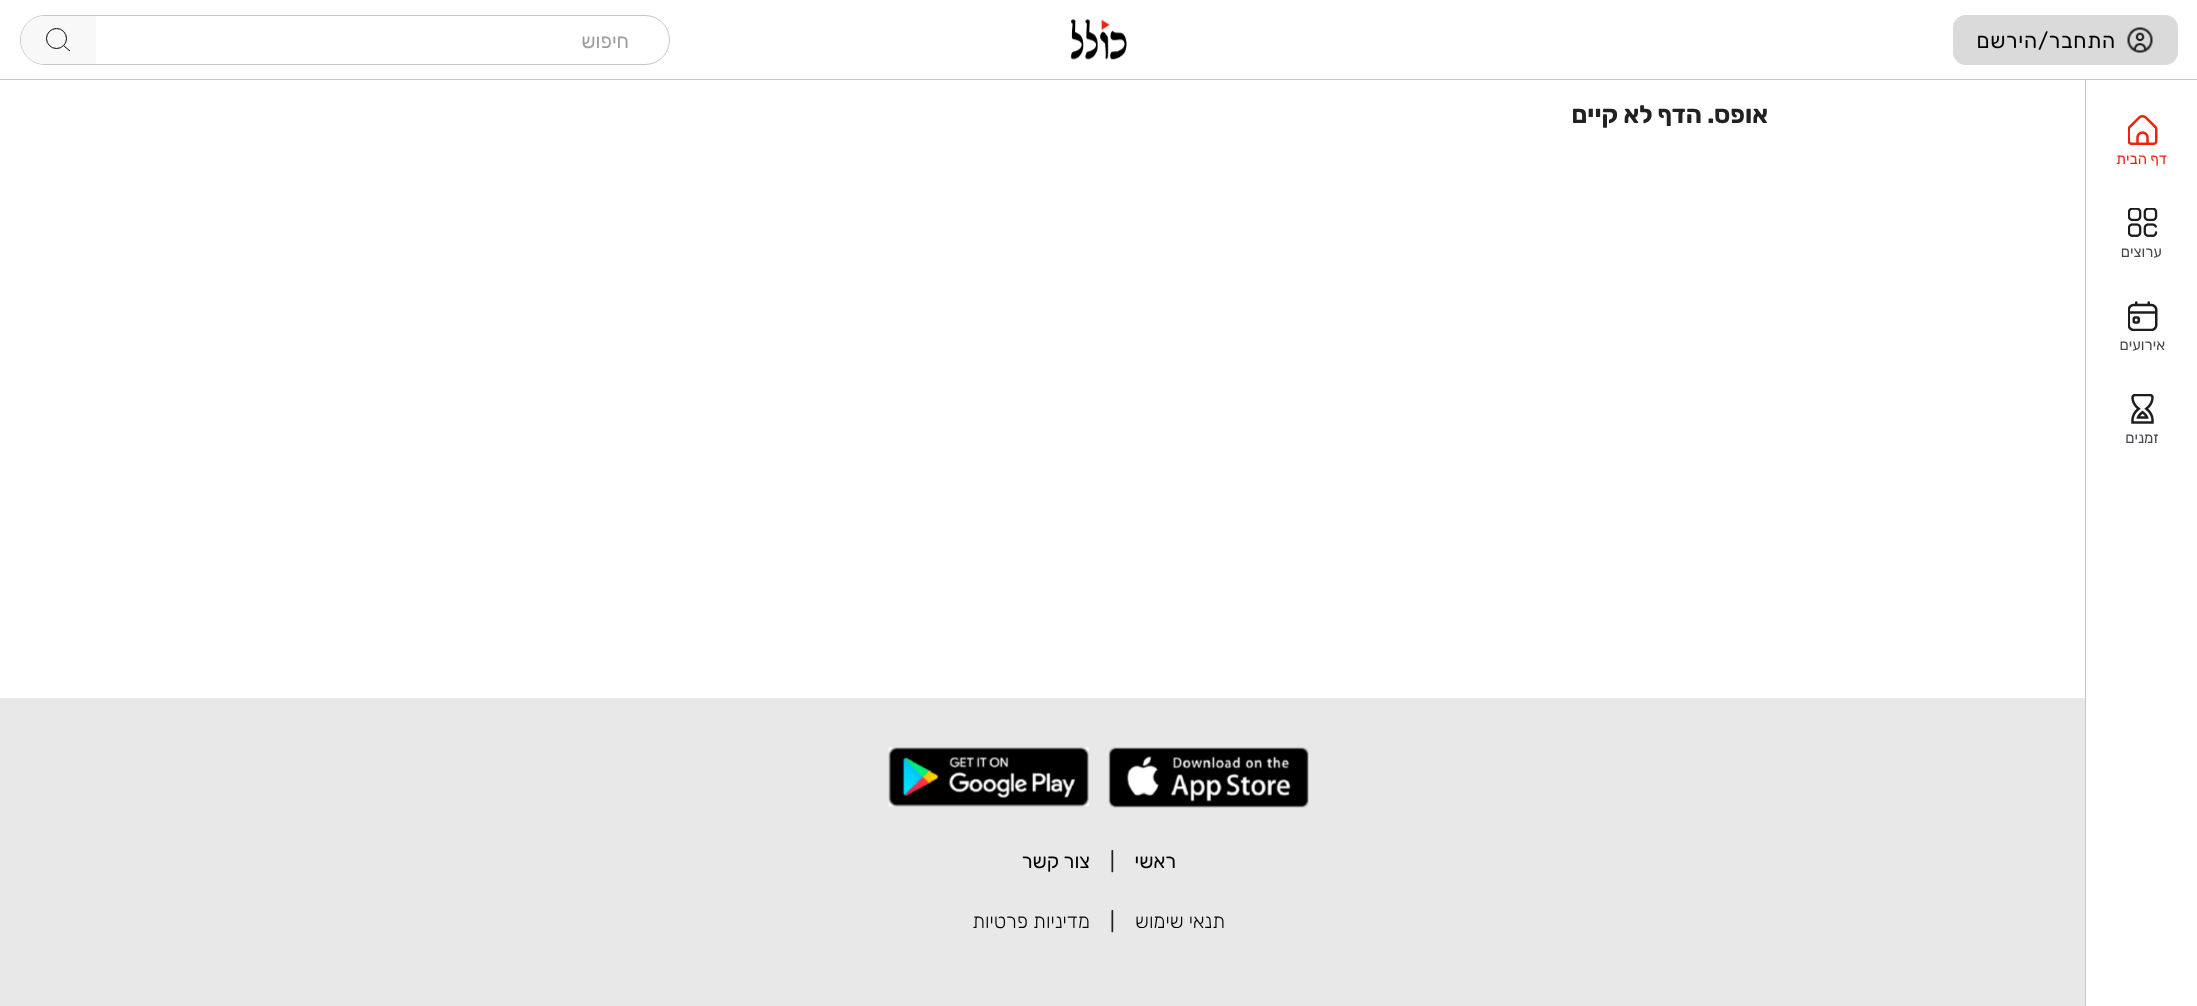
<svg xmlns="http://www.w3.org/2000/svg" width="2197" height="1006">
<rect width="100%" height="100%" fill="#fff"/>
<rect y="79" width="2197" height="1" fill="#c6c6c6"/>
<rect x="1953" y="15" width="225" height="50" rx="13" fill="#dadada"/>
<image x="2127" y="27" width="26" height="26" href="media/1.png"/>
<text x="2116" y="48" style="font-family:Rubik;font-size:21.25px;letter-spacing:0.75px;direction:rtl;fill:#000">התחבר/הירשם</text>
<image x="1070" y="19" width="57" height="41" href="media/2.png"/>
<rect x="20.5" y="15.5" width="649" height="49" rx="24.5" fill="none" stroke="#c6c6c6"/>
<text x="629" y="48" style="font-family:Rubik;font-size:20px;direction:rtl;fill:#9e9e9e">חיפוש</text>
<path d="M45 16h51v48h-51c-13.5 0-24-10.5-24-24c0-13.5 10.5-24 24-24z" fill="#f8f8f8"/>
<path d="M64 46l6 5" fill="none" stroke="#000"/>
<circle cx="56.5" cy="38.5" r="10" fill="none" stroke="#000"/>
<text x="1768" y="123" style="font-family:Rubik;font-size:25px;font-weight:bold;direction:rtl;fill:#212121">אופס. הדף לא קיים</text>
<rect x="2085" y="80" width="1" height="926" fill="#c6c6c6"/>
<image x="2128" y="115" width="30" height="30" href="media/3.png"/>
<text x="2167" y="164" style="font-family:Rubik;font-size:15px;direction:rtl;fill:#ed220d">דף הבית</text>
<image x="2128" y="208" width="30" height="29" href="media/4.png"/>
<text x="2162" y="257" style="font-family:Rubik;font-size:15px;direction:rtl;fill:#49454f">ערוצים</text>
<image x="2128" y="301" width="30" height="30" href="media/5.png"/>
<text x="2165" y="350" style="font-family:Rubik;font-size:15px;direction:rtl;fill:#49454f">אירועים</text>
<image x="2131" y="394" width="23" height="30" href="media/6.png"/>
<text x="2159" y="443" style="font-family:Rubik;font-size:15px;direction:rtl;fill:#49454f">זמנים</text>
<rect y="698" width="2085" height="308" fill="#e8e8e8"/>
<image x="1108" y="747" width="201" height="61" href="media/7.png"/>
<image x="888" y="747" width="201" height="60" href="media/8.png"/>
<text x="1176" y="868" style="font-family:Rubik;font-size:20px;direction:rtl;fill:#000">ראשי</text>
<text x="1110" y="868" style="font-family:Rubik;font-size:20px;fill:#212121">|</text>
<text x="1090" y="868" style="font-family:Rubik;font-size:20px;direction:rtl;fill:#000">צור קשר</text>
<text x="1225" y="928" style="font-family:Rubik;font-size:20px;font-weight:300;direction:rtl;fill:#000">תנאי שימוש</text>
<text x="1110" y="928" style="font-family:Rubik;font-size:20px;fill:#212121">|</text>
<text x="1090" y="928" style="font-family:Rubik;font-size:20px;font-weight:300;direction:rtl;fill:#000">מדיניות פרטיות</text>
</svg>
